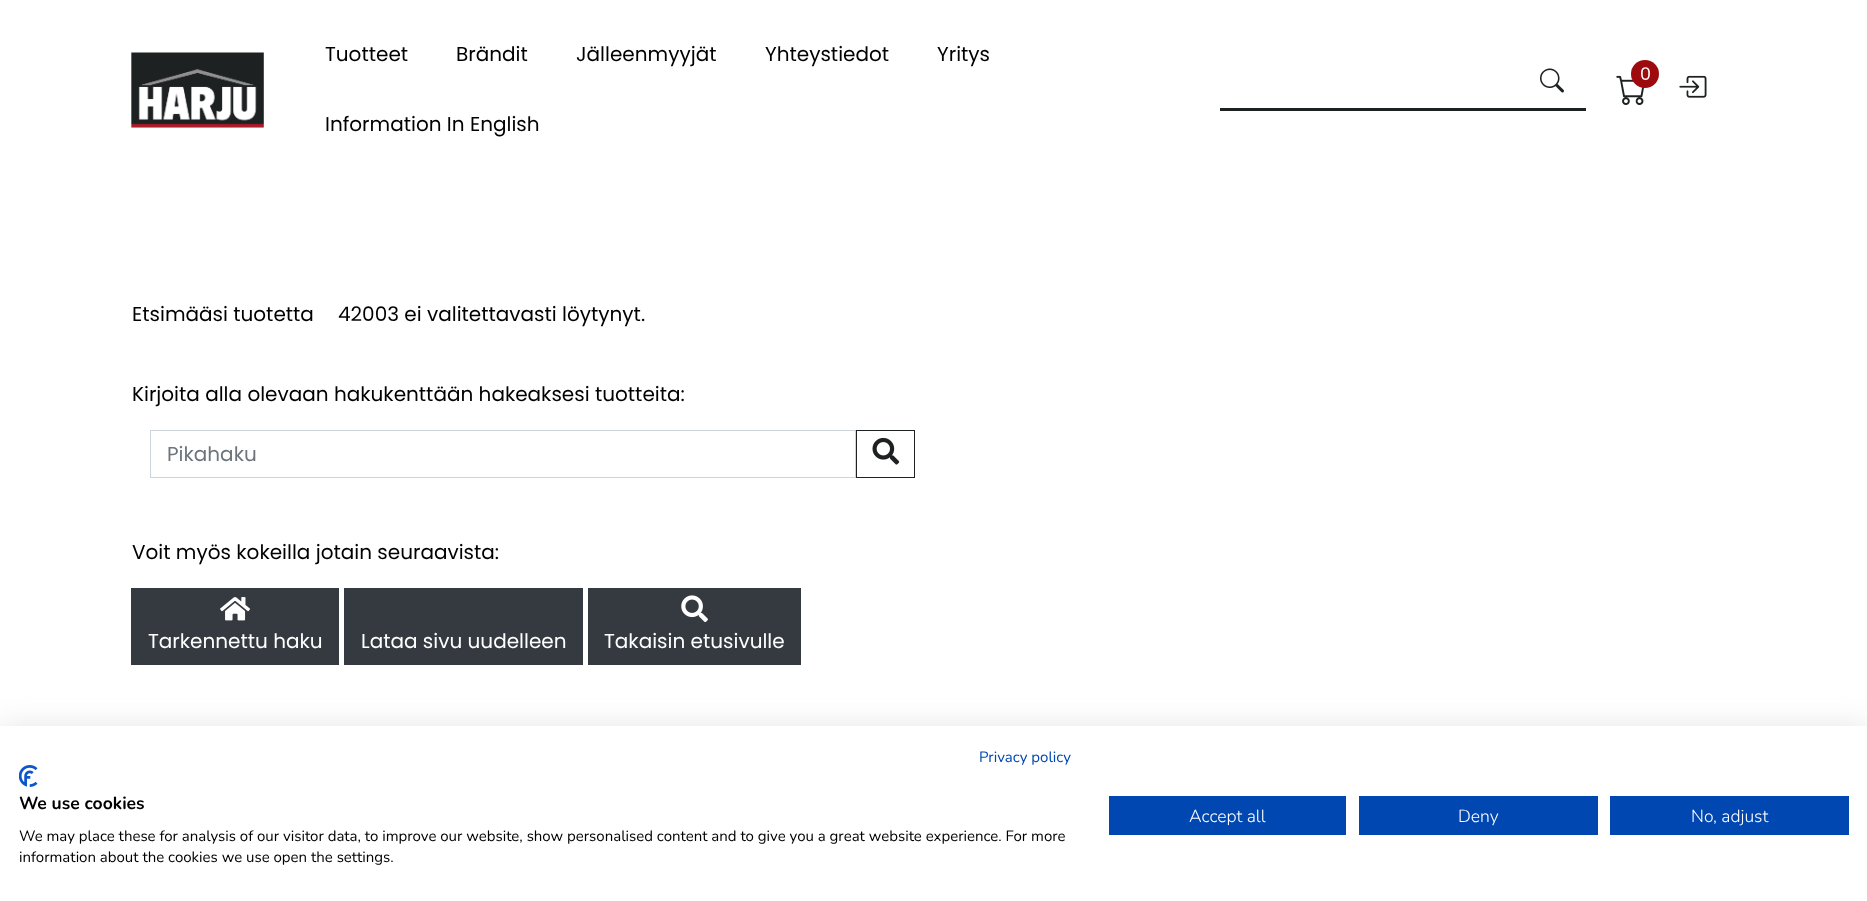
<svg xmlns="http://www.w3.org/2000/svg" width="1867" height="901">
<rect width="100%" height="100%" fill="#fff"/>
<image x="131" y="52" width="133" height="76" href="media/1.png"/>
<text x="325" y="61" style="font-family:Poppins;font-size:20px;fill:#000">Tuotteet</text>
<text x="456" y="61" style="font-family:Poppins;font-size:20px;fill:#000">Brändit</text>
<text x="576" y="61" style="font-family:Poppins;font-size:20px;fill:#000">Jälleenmyyjät</text>
<text x="765" y="61" style="font-family:Poppins;font-size:20px;fill:#000">Yhteystiedot</text>
<text x="937" y="61" style="font-family:Poppins;font-size:20px;fill:#000">Yritys</text>
<text x="325" y="131" style="font-family:Poppins;font-size:20px;fill:#000">Information In English</text>
<rect x="1220" y="108" width="366" height="3" fill="#1e2122"/>
<image x="1540" y="68" width="24" height="25" href="media/2.png"/>
<image x="1616" y="75" width="29" height="30" href="media/3.png"/>
<circle cx="1645" cy="74" r="14" fill="#9e0b0f"/>
<text x="1640" y="80" style="font-family:Poppins;font-size:17.5px;fill:#fff">0</text>
<image x="1679" y="75" width="28" height="23" href="media/4.png"/>
<text x="132" y="321" style="font-family:Poppins;font-size:20px;fill:#000">Etsimääsi tuotetta</text>
<text x="338" y="321" style="font-family:Poppins;font-size:20px;fill:#000">42003 ei valitettavasti löytynyt.</text>
<text x="132" y="401" style="font-family:Poppins;font-size:20px;fill:#000">Kirjoita alla olevaan hakukenttään hakeaksesi tuotteita:</text>
<rect x="150.5" y="430.5" width="705" height="47" fill="none" stroke="#ced4da"/>
<text x="167" y="461" style="font-family:Poppins;font-size:20px;fill:#6c757d">Pikahaku</text>
<rect x="856.5" y="430.5" width="58" height="47" fill="none" stroke="#1e2122"/>
<image x="872" y="437" width="28" height="28" href="media/5.png"/>
<text x="132" y="559" style="font-family:Poppins;font-size:20px;fill:#000">Voit myös kokeilla jotain seuraavista:</text>
<rect x="131" y="588" width="208" height="77" fill="#343a40"/>
<image x="220" y="597" width="30" height="24" href="media/6.png"/>
<text x="148" y="648" style="font-family:Poppins;font-size:20px;fill:#fff">Tarkennettu haku</text>
<rect x="344" y="588" width="239" height="77" fill="#343a40"/>
<text x="361" y="648" style="font-family:Poppins;font-size:20px;fill:#fff">Lataa sivu uudelleen</text>
<rect x="588" y="588" width="213" height="77" fill="#343a40"/>
<image x="681" y="595" width="27" height="28" href="media/7.png"/>
<text x="604" y="648" style="font-family:Poppins;font-size:20px;fill:#fff">Takaisin etusivulle</text>
<rect y="726" width="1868" height="175" fill="#0000001a" filter="blur(15px)"/>
<rect y="726" width="1867" height="175" fill="#fff"/>
<text x="979" y="762" style="font-family:Nunito;font-size:15px;fill:#0047b2">Privacy policy</text>
<image x="19" y="765" width="19" height="22" href="media/8.png"/>
<text x="19" y="809" style="font-family:Nunito;font-size:17.5px;font-weight:bold;fill:#000">We use cookies</text>
<text x="19" y="841" style="font-family:Nunito;font-size:15px;fill:#000">We may place these for analysis of our visitor data, to improve our website, show personalised content and to give you a great website experience. For more</text>
<text x="19" y="862" style="font-family:Nunito;font-size:15px;fill:#000">information about the cookies we use open the settings.</text>
<rect x="1109" y="796" width="237" height="39" fill="#0047b2"/>
<text x="1189" y="822" style="font-family:Nunito;font-size:17.5px;font-weight:300;fill:#fff">Accept all</text>
<rect x="1359" y="796" width="239" height="39" fill="#0047b2"/>
<text x="1458" y="822" style="font-family:Nunito;font-size:17.5px;font-weight:300;fill:#fff">Deny</text>
<rect x="1610" y="796" width="239" height="39" fill="#0047b2"/>
<text x="1691" y="822" style="font-family:Nunito;font-size:17.5px;font-weight:300;fill:#fff">No, adjust</text>
</svg>
